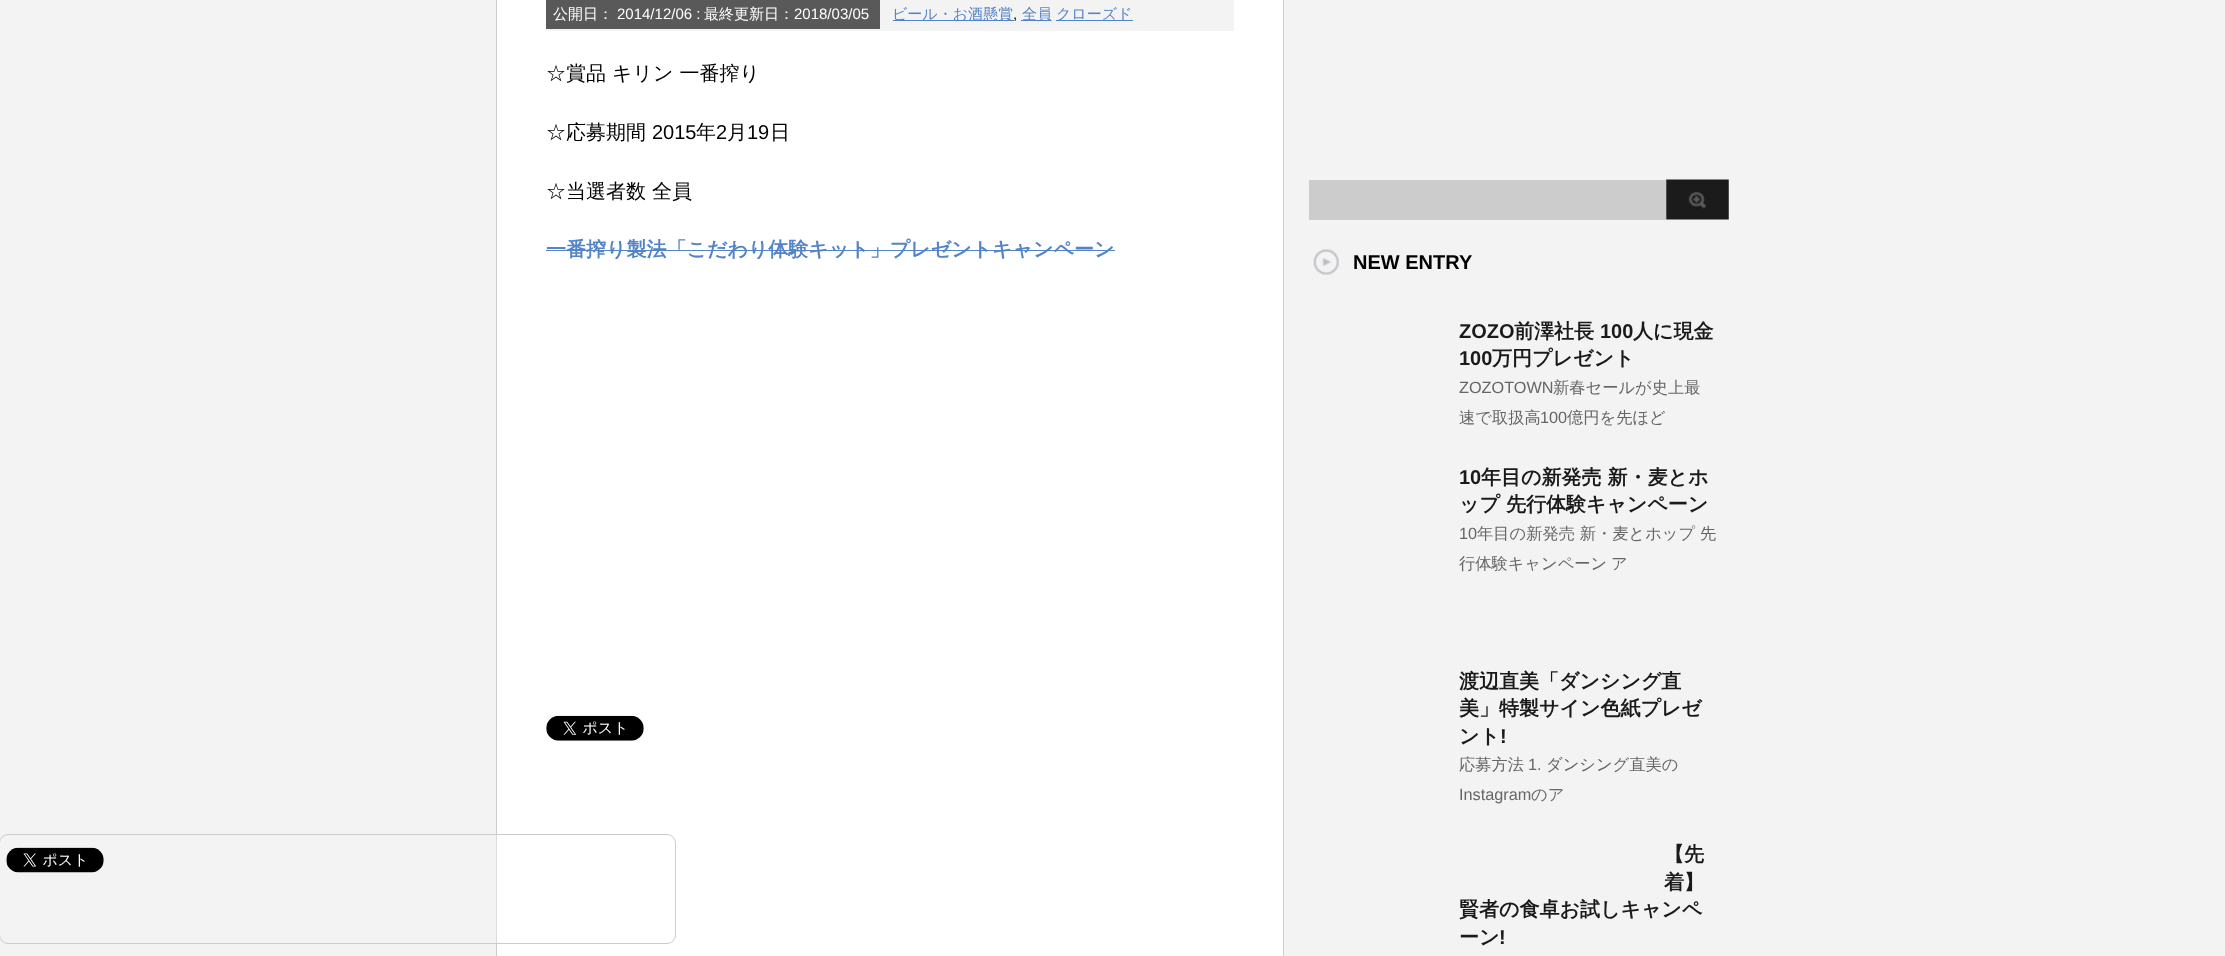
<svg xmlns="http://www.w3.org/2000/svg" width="2225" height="956">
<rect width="100%" height="100%" fill="#f3f3f3"/>
<rect x="496.5" y="-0.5" width="787" height="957" fill="#fff" stroke="#ccc"/>
<rect x="496" y="834" width="1" height="110" fill="#dbdbdb"/>
<rect x="-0.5" y="834.5" width="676" height="109" rx="8.5" fill="none" stroke="#ccc"/>
<image x="6" y="847" width="98" height="26" href="media/1.png"/>
<rect x="546" width="688" height="31" fill="#f3f3f3"/>
<rect x="546" width="334" height="29" fill="#595959"/>
<text x="553" y="19" style="font-family:WenQuanYi Zen Hei;font-size:15px;font-weight:500;fill:#fff">公開日：</text>
<text x="617" y="19" style="font-family:Liberation Sans;font-size:15px;fill:#fff">2014/12/06 :</text>
<text x="704" y="19" style="font-family:WenQuanYi Zen Hei;font-size:15px;font-weight:500;fill:#fff">最終更新日：</text>
<text x="794" y="19" style="font-family:Liberation Sans;font-size:15px;fill:#fff">2018/03/05</text>
<rect x="893" y="20" width="121" height="1" fill="#5484c8"/>
<text x="892" y="19" style="font-family:WenQuanYi Zen Hei;font-size:15px;font-weight:500;fill:#5484c8">ビール・お酒懸賞</text>
<text x="1013" y="19" style="font-family:Liberation Sans;font-size:15px;fill:#000">,</text>
<rect x="1021" y="20" width="30" height="1" fill="#5484c8"/>
<text x="1022" y="19" style="font-family:WenQuanYi Zen Hei;font-size:15px;font-weight:500;fill:#5484c8">全員</text>
<rect x="1056" y="20" width="77" height="1" fill="#5484c8"/>
<text x="1056" y="19" style="font-family:WenQuanYi Zen Hei;font-size:15px;font-weight:500;fill:#5484c8">クローズド</text>
<text x="546" y="80" style="font-family:WenQuanYi Zen Hei;font-size:20px;font-weight:500;fill:#000">☆賞品 キリン 一番搾り</text>
<text x="546" y="139" style="font-family:WenQuanYi Zen Hei;font-size:20px;font-weight:500;fill:#000">☆応募期間</text>
<text x="652" y="139" style="font-family:Liberation Sans;font-size:20px;fill:#000">2015</text>
<text x="696" y="139" style="font-family:WenQuanYi Zen Hei;font-size:20px;font-weight:500;fill:#000">年</text>
<text x="716" y="139" style="font-family:Liberation Sans;font-size:20px;fill:#000">2</text>
<text x="727" y="139" style="font-family:WenQuanYi Zen Hei;font-size:20px;font-weight:500;fill:#000">月</text>
<text x="747" y="139" style="font-family:Liberation Sans;font-size:20px;fill:#000">19</text>
<text x="770" y="139" style="font-family:WenQuanYi Zen Hei;font-size:20px;font-weight:500;fill:#000">日</text>
<text x="546" y="198" style="font-family:WenQuanYi Zen Hei;font-size:20px;font-weight:500;fill:#000">☆当選者数 全員</text>
<text x="546" y="256" style="font-family:WenQuanYi Zen Hei;font-size:20px;font-weight:bold;fill:#5484c8">一番搾り製法「こだわり体験キット」プレゼントキャンペーン</text>
<rect x="546" y="250" width="569" height="1" fill="#5484c8"/>
<image x="546" y="715" width="98" height="26" href="media/2.png"/>
<rect x="1309" y="180" width="357" height="40" fill="#ccc"/>
<image x="1666" y="179" width="63" height="41" href="media/3.png"/>
<image x="1313" y="249" width="26" height="26" href="media/4.png"/>
<text x="1353" y="269" style="font-family:Liberation Sans;font-size:20px;font-weight:bold;fill:#000">NEW ENTRY</text>
<text x="1459" y="338" style="font-family:Liberation Sans;font-size:20px;font-weight:bold;fill:#1a1a1a">ZOZO</text>
<text x="1514" y="338" style="font-family:WenQuanYi Zen Hei;font-size:20px;font-weight:bold;fill:#1a1a1a">前澤社長</text>
<text x="1600" y="338" style="font-family:Liberation Sans;font-size:20px;font-weight:bold;fill:#1a1a1a">100</text>
<text x="1633" y="338" style="font-family:WenQuanYi Zen Hei;font-size:20px;font-weight:bold;fill:#1a1a1a">人に現金</text>
<text x="1459" y="365" style="font-family:Liberation Sans;font-size:20px;font-weight:bold;fill:#1a1a1a">100</text>
<text x="1492" y="365" style="font-family:WenQuanYi Zen Hei;font-size:20px;font-weight:bold;fill:#1a1a1a">万円プレゼント</text>
<text x="1459" y="393" style="font-family:Liberation Sans;font-size:16.25px;fill:#666">ZOZOTOWN</text>
<text x="1553" y="393" style="font-family:WenQuanYi Zen Hei;font-size:16.25px;font-weight:500;fill:#666">新春セールが史上最</text>
<text x="1459" y="423" style="font-family:WenQuanYi Zen Hei;font-size:16.25px;font-weight:500;fill:#666">速で取扱高</text>
<text x="1540" y="423" style="font-family:Liberation Sans;font-size:16.25px;fill:#666">100</text>
<text x="1567" y="423" style="font-family:WenQuanYi Zen Hei;font-size:16.25px;font-weight:500;fill:#666">億円を先ほど</text>
<text x="1459" y="484" style="font-family:Liberation Sans;font-size:20px;font-weight:bold;fill:#1a1a1a">10</text>
<text x="1481" y="484" style="font-family:WenQuanYi Zen Hei;font-size:20px;font-weight:bold;fill:#1a1a1a">年目の新発売 新・麦とホ</text>
<text x="1459" y="511" style="font-family:WenQuanYi Zen Hei;font-size:20px;font-weight:bold;fill:#1a1a1a">ップ 先行体験キャンペーン</text>
<text x="1459" y="539" style="font-family:Liberation Sans;font-size:16.25px;fill:#666">10</text>
<text x="1477" y="539" style="font-family:WenQuanYi Zen Hei;font-size:16.25px;font-weight:500;fill:#666">年目の新発売 新・麦とホップ 先</text>
<text x="1459" y="569" style="font-family:WenQuanYi Zen Hei;font-size:16.25px;font-weight:500;fill:#666">行体験キャンペーン</text>
<text x="1611" y="569" style="font-family:WenQuanYi Zen Hei;font-size:16.25px;font-weight:500;fill:#666">ア</text>
<text x="1459" y="688" style="font-family:WenQuanYi Zen Hei;font-size:20px;font-weight:bold;fill:#1a1a1a">渡辺直美「ダンシング直</text>
<text x="1459" y="715" style="font-family:WenQuanYi Zen Hei;font-size:20px;font-weight:bold;fill:#1a1a1a">美」特製サイン色紙プレゼ</text>
<text x="1459" y="743" style="font-family:WenQuanYi Zen Hei;font-size:20px;font-weight:bold;fill:#1a1a1a">ント</text>
<text x="1500" y="743" style="font-family:Liberation Sans;font-size:20px;font-weight:bold;fill:#1a1a1a">!</text>
<text x="1459" y="770" style="font-family:WenQuanYi Zen Hei;font-size:16.25px;font-weight:500;fill:#666">応募方法</text>
<text x="1528" y="770" style="font-family:Liberation Sans;font-size:16.25px;fill:#666">1.</text>
<text x="1546" y="770" style="font-family:WenQuanYi Zen Hei;font-size:16.25px;font-weight:500;fill:#666">ダンシング直美の</text>
<text x="1459" y="800" style="font-family:Liberation Sans;font-size:16.25px;fill:#666">Instagram</text>
<text x="1531" y="800" style="font-family:WenQuanYi Zen Hei;font-size:16.25px;font-weight:500;fill:#666">のア</text>
<text x="1664" y="861" style="font-family:WenQuanYi Zen Hei;font-size:20px;font-weight:bold;fill:#1a1a1a">【先</text>
<text x="1664" y="889" style="font-family:WenQuanYi Zen Hei;font-size:20px;font-weight:bold;fill:#1a1a1a">着】</text>
<text x="1459" y="916" style="font-family:WenQuanYi Zen Hei;font-size:20px;font-weight:bold;fill:#1a1a1a">賢者の食卓お試しキャンペ</text>
<text x="1459" y="944" style="font-family:WenQuanYi Zen Hei;font-size:20px;font-weight:bold;fill:#1a1a1a">ーン</text>
<text x="1499" y="944" style="font-family:Liberation Sans;font-size:20px;font-weight:bold;fill:#1a1a1a">!</text>
</svg>
